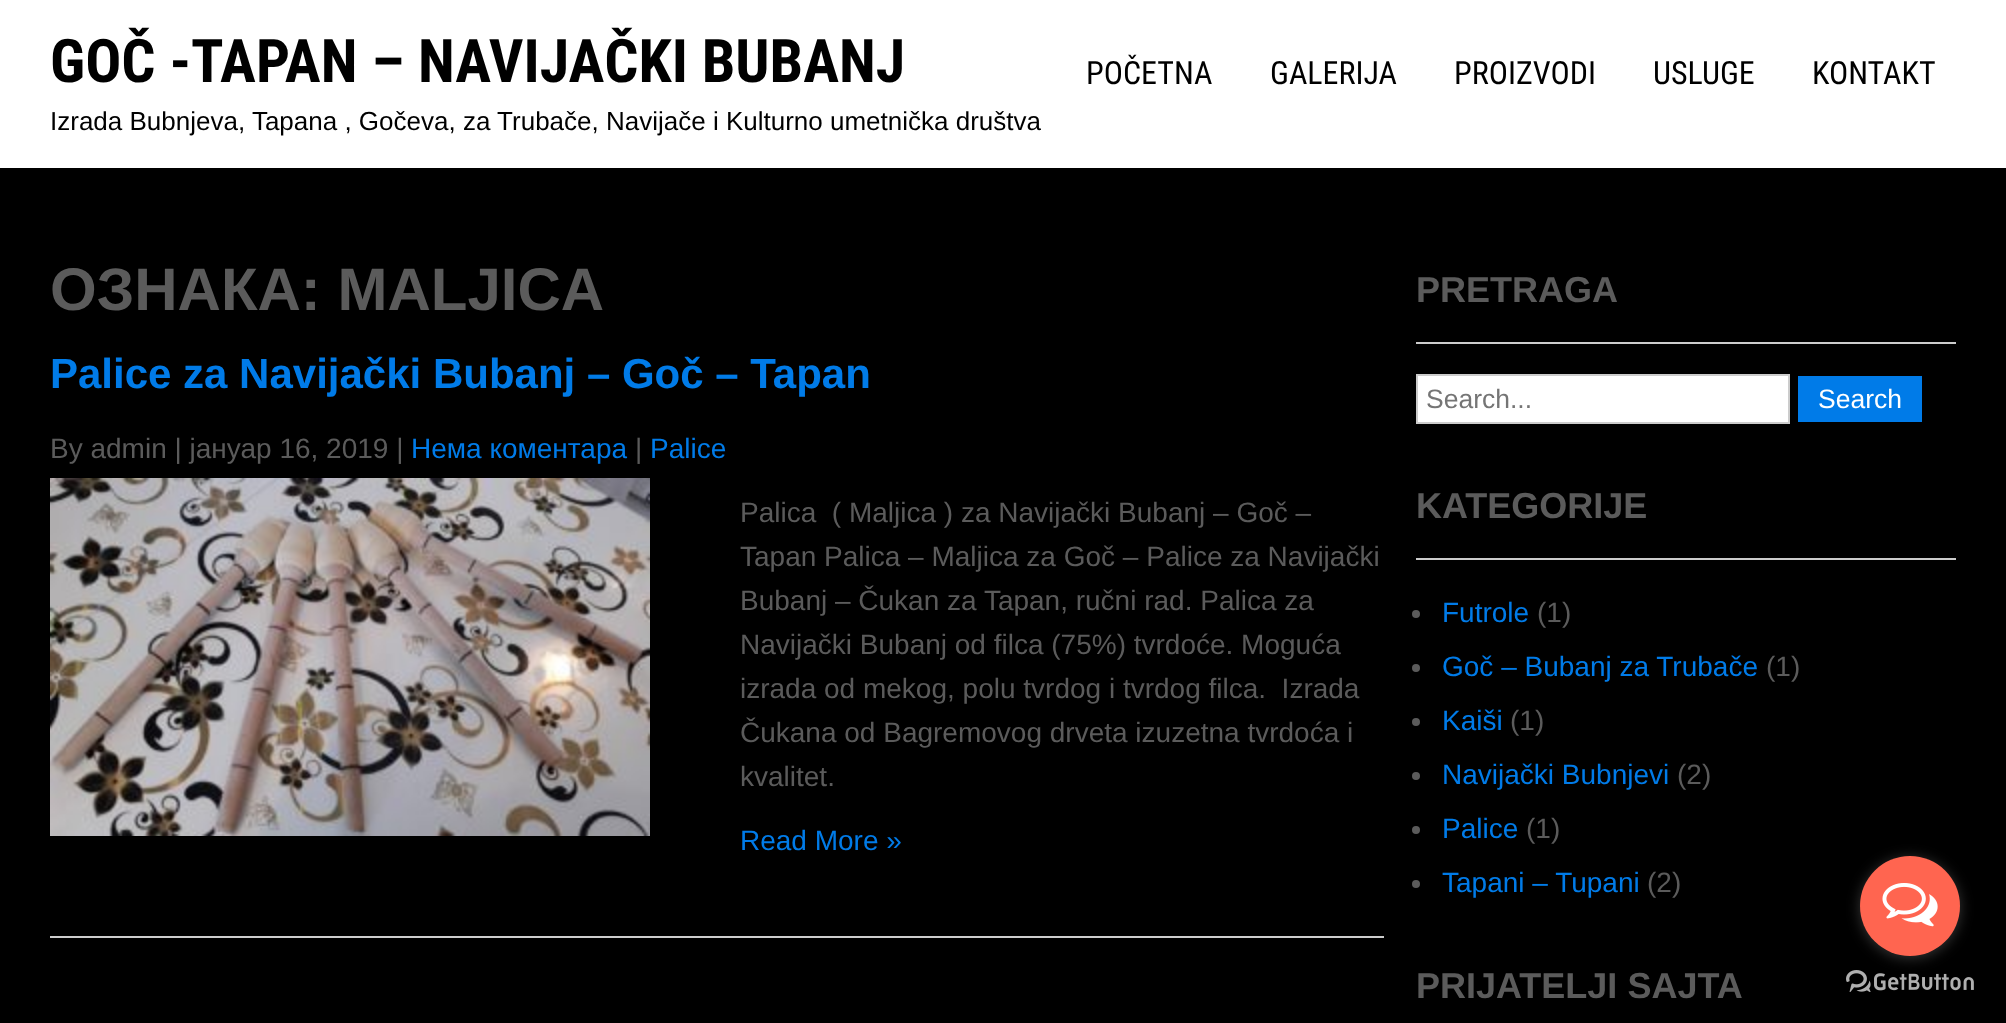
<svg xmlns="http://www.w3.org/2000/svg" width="2006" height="1023">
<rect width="100%" height="100%" fill="#000"/>
<rect width="2006" height="168" fill="#fff"/>
<text x="50" y="82" style="font-family:Roboto Condensed;font-size:60px;font-weight:bold;fill:#000">GOČ -TAPAN – NAVIJAČKI BUBANJ</text>
<text x="50" y="130" style="font-family:Arimo;font-size:26px;fill:#000">Izrada Bubnjeva, Tapana , Gočeva, za Trubače, Navijače i Kulturno umetnička društva</text>
<text x="1086" y="84" style="font-family:Roboto Condensed;font-size:32px;fill:#000">POČETNA</text>
<text x="1270" y="84" style="font-family:Roboto Condensed;font-size:32px;fill:#000">GALERIJA</text>
<text x="1454" y="84" style="font-family:Roboto Condensed;font-size:32px;fill:#000">PROIZVODI</text>
<text x="1653" y="84" style="font-family:Roboto Condensed;font-size:32px;fill:#000">USLUGE</text>
<text x="1812" y="84" style="font-family:Roboto Condensed;font-size:32px;fill:#000">KONTAKT</text>
<text x="50" y="310" style="font-family:Liberation Sans;font-size:60px;font-weight:bold;fill:#5b5b5b">ОЗНАКА: MALJICA</text>
<rect x="50" y="936" width="1334" height="2" fill="#ccc"/>
<text x="50" y="388" style="font-family:Liberation Sans;font-size:42px;font-weight:bold;fill:#007be8">Palice za Navijački Bubanj – Goč – Tapan</text>
<text x="50" y="458" style="font-family:Liberation Sans;font-size:28px;fill:#5b5b5b">By admin | јануар 16, 2019 |</text>
<text x="411" y="458" style="font-family:Liberation Sans;font-size:28px;fill:#007be8">Нема коментара</text>
<text x="635" y="458" style="font-family:Liberation Sans;font-size:28px;fill:#5b5b5b">|</text>
<text x="650" y="458" style="font-family:Liberation Sans;font-size:28px;fill:#007be8">Palice</text>
<image x="50" y="478" width="600" height="358" href="media/1.png"/>
<text x="740" y="522" style="font-family:Liberation Sans;font-size:28px;fill:#5b5b5b" xml:space="preserve">Palica  ( Maljica ) za Navijački Bubanj – Goč –</text>
<text x="740" y="566" style="font-family:Liberation Sans;font-size:28px;fill:#5b5b5b">Tapan Palica – Maljica za Goč – Palice za Navijački</text>
<text x="740" y="610" style="font-family:Liberation Sans;font-size:28px;fill:#5b5b5b">Bubanj – Čukan za Tapan, ručni rad. Palica za</text>
<text x="740" y="654" style="font-family:Liberation Sans;font-size:28px;fill:#5b5b5b">Navijački Bubanj od filca (75%) tvrdoće. Moguća</text>
<text x="740" y="698" style="font-family:Liberation Sans;font-size:28px;fill:#5b5b5b" xml:space="preserve">izrada od mekog, polu tvrdog i tvrdog filca.  Izrada</text>
<text x="740" y="742" style="font-family:Liberation Sans;font-size:28px;fill:#5b5b5b">Čukana od Bagremovog drveta izuzetna tvrdoća i</text>
<text x="740" y="786" style="font-family:Liberation Sans;font-size:28px;fill:#5b5b5b">kvalitet.</text>
<text x="740" y="850" style="font-family:Liberation Sans;font-size:28px;fill:#007be8">Read More »</text>
<rect x="1416" y="342" width="540" height="2" fill="#ccc"/>
<text x="1416" y="302" style="font-family:Liberation Sans;font-size:36px;font-weight:bold;fill:#5b5b5b">PRETRAGA</text>
<rect x="1417" y="375" width="372" height="48" fill="#fff" stroke="#ccc" stroke-width="2"/>
<text x="1426" y="408" style="font-family:Liberation Sans;font-size:26.5px;fill:#757575">Search...</text>
<rect x="1798" y="376" width="124" height="46" fill="#007be8"/>
<text x="1818" y="408" style="font-family:Liberation Sans;font-size:26.5px;fill:#fff">Search</text>
<rect x="1416" y="558" width="540" height="2" fill="#ccc"/>
<text x="1416" y="518" style="font-family:Liberation Sans;font-size:36px;font-weight:bold;fill:#5b5b5b">KATEGORIJE</text>
<circle cx="1416" cy="614" r="4" fill="#5b5b5b"/>
<text x="1442" y="622" style="font-family:Liberation Sans;font-size:28px;fill:#007be8">Futrole</text>
<text x="1537" y="622" style="font-family:Liberation Sans;font-size:28px;fill:#5b5b5b">(1)</text>
<circle cx="1416" cy="668" r="4" fill="#5b5b5b"/>
<text x="1442" y="676" style="font-family:Liberation Sans;font-size:28px;fill:#007be8">Goč – Bubanj za Trubače</text>
<text x="1766" y="676" style="font-family:Liberation Sans;font-size:28px;fill:#5b5b5b">(1)</text>
<circle cx="1416" cy="722" r="4" fill="#5b5b5b"/>
<text x="1442" y="730" style="font-family:Liberation Sans;font-size:28px;fill:#007be8">Kaiši</text>
<text x="1510" y="730" style="font-family:Liberation Sans;font-size:28px;fill:#5b5b5b">(1)</text>
<circle cx="1416" cy="776" r="4" fill="#5b5b5b"/>
<text x="1442" y="784" style="font-family:Liberation Sans;font-size:28px;fill:#007be8">Navijački Bubnjevi</text>
<text x="1677" y="784" style="font-family:Liberation Sans;font-size:28px;fill:#5b5b5b">(2)</text>
<circle cx="1416" cy="830" r="4" fill="#5b5b5b"/>
<text x="1442" y="838" style="font-family:Liberation Sans;font-size:28px;fill:#007be8">Palice</text>
<text x="1526" y="838" style="font-family:Liberation Sans;font-size:28px;fill:#5b5b5b">(1)</text>
<circle cx="1416" cy="884" r="4" fill="#5b5b5b"/>
<text x="1442" y="892" style="font-family:Liberation Sans;font-size:28px;fill:#007be8">Tapani – Tupani</text>
<text x="1647" y="892" style="font-family:Liberation Sans;font-size:28px;fill:#5b5b5b">(2)</text>
<text x="1416" y="998" style="font-family:Liberation Sans;font-size:36px;font-weight:bold;fill:#5b5b5b">PRIJATELJI SAJTA</text>
<image x="1846" y="970" width="128" height="22" href="media/3.png"/>
<rect x="1860" y="858" width="100" height="100" rx="50" fill="#88888866" filter="blur(7px)"/>
<circle cx="1910" cy="906" r="50" fill="#ff6550"/>
<image x="1882" y="883" width="56" height="44" href="media/2.png"/>
</svg>
